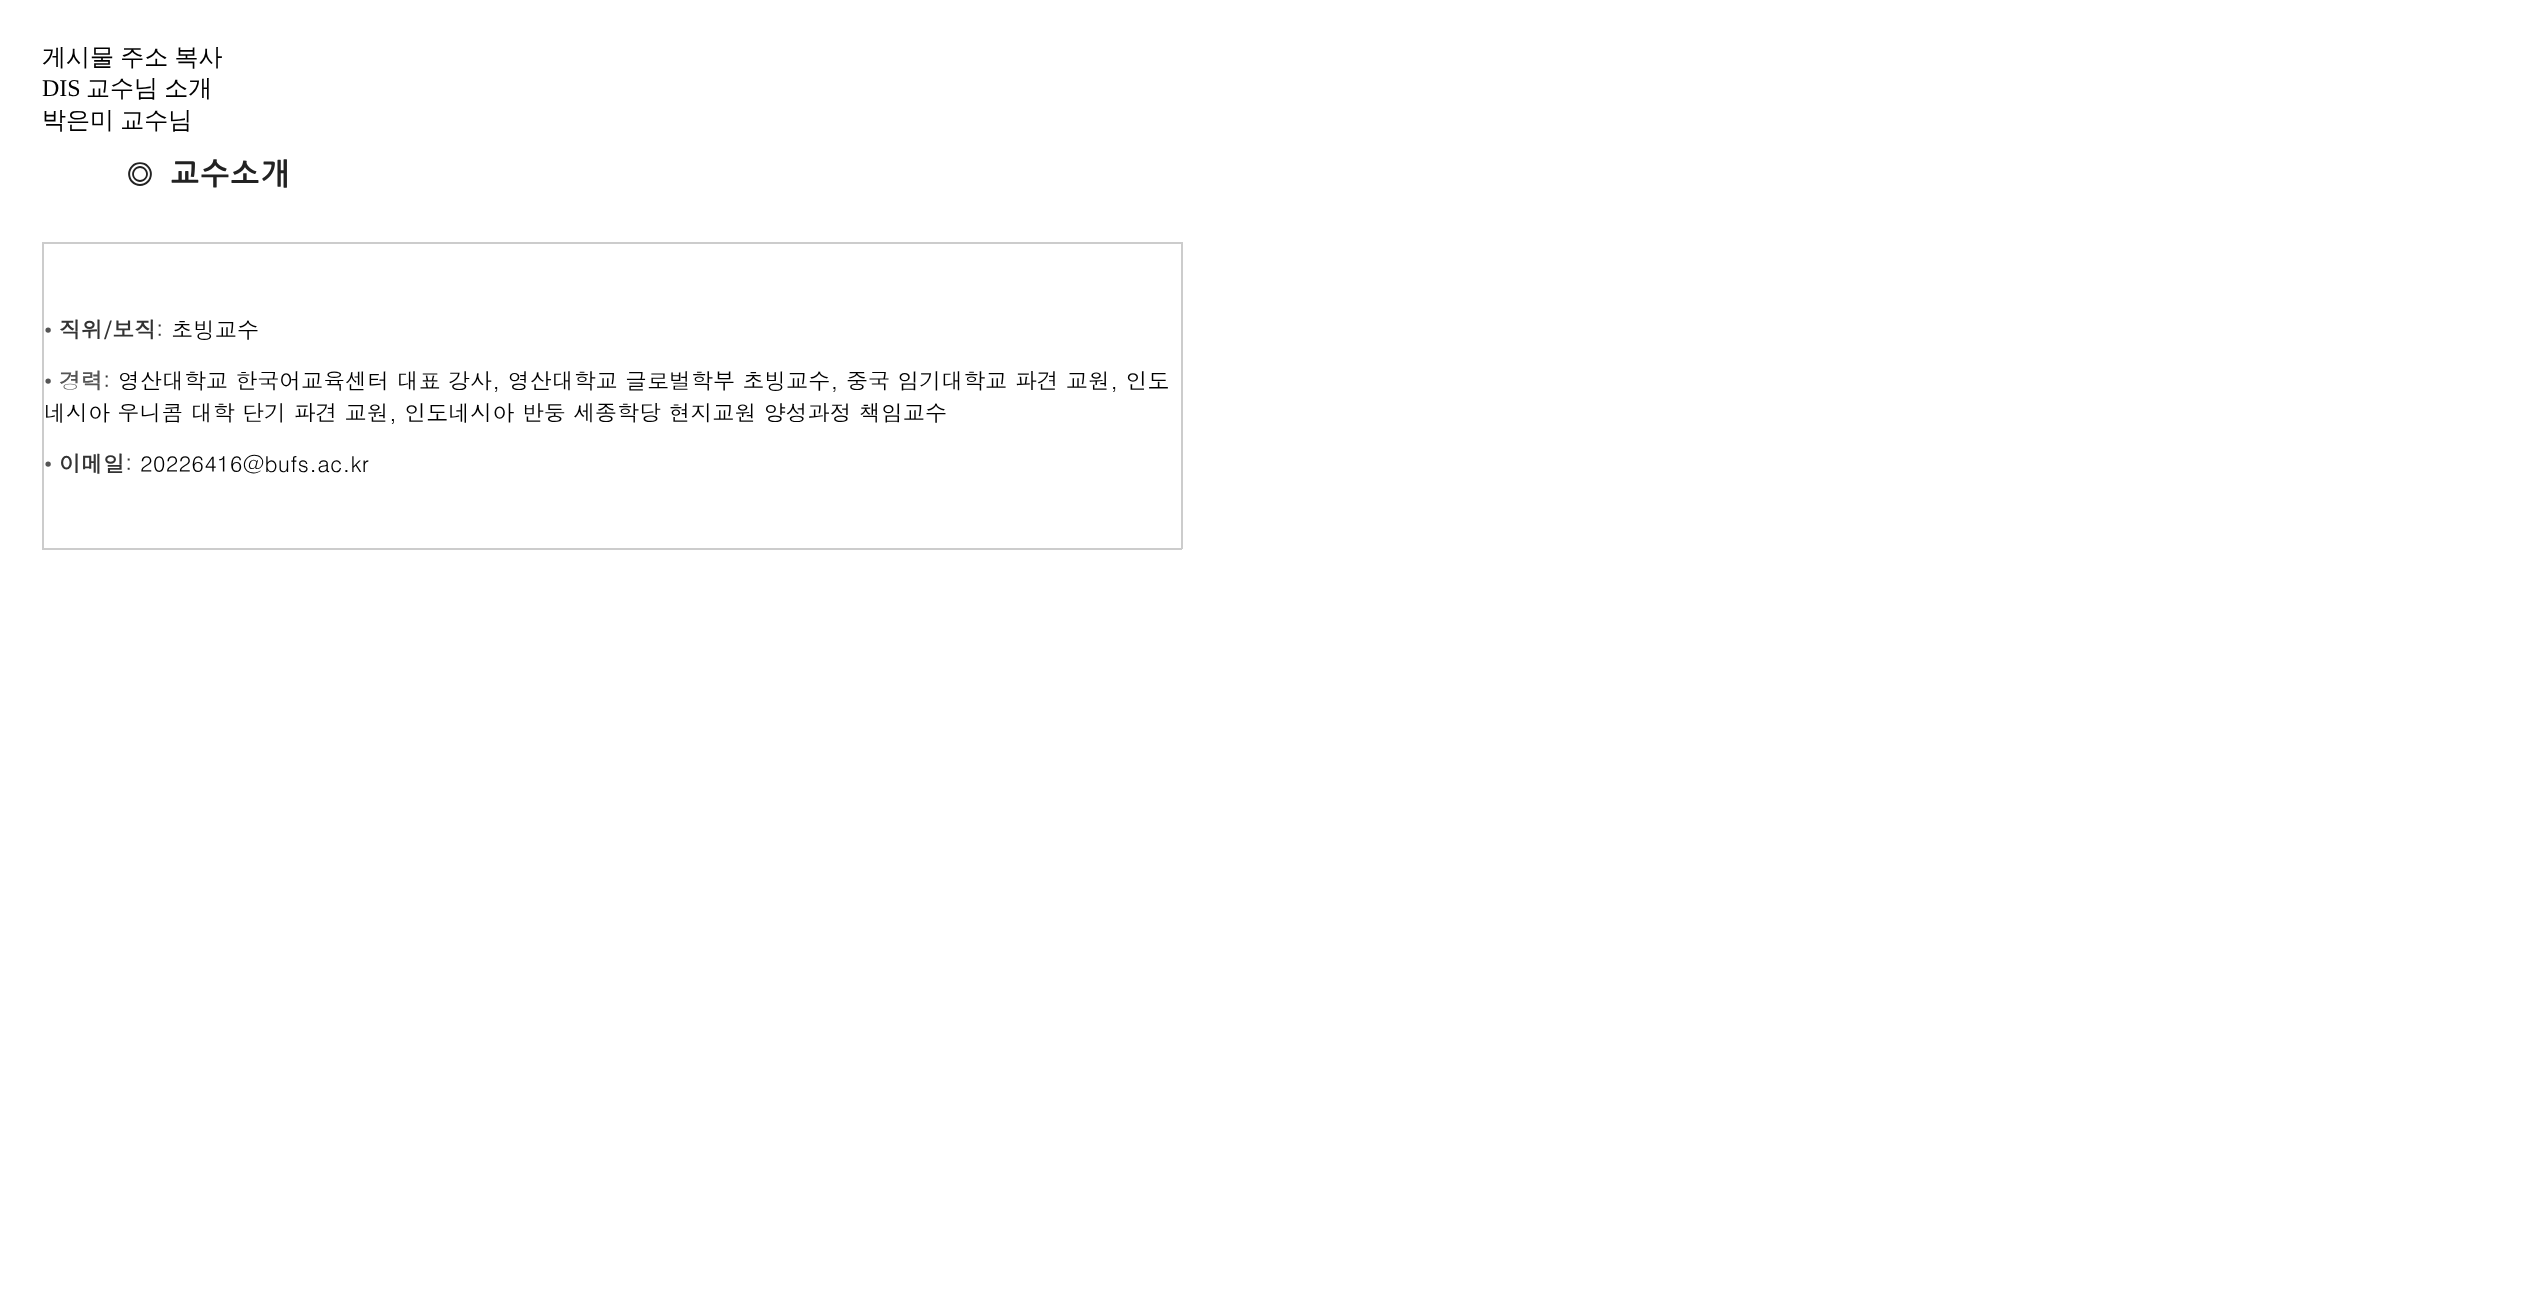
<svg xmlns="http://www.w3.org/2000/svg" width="2524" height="1307">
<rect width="100%" height="100%" fill="#fff"/>
<text x="42" y="65" word-spacing="-1" style="font-family:WenQuanYi Zen Hei;font-size:24px;font-weight:500;fill:#000">게시물 주소 복사</text>
<text x="42" y="96" style="font-family:Liberation Serif;font-size:24px;fill:#000">DIS</text>
<text x="86" y="96" word-spacing="-1" style="font-family:WenQuanYi Zen Hei;font-size:24px;font-weight:500;fill:#000">교수님 소개</text>
<text x="42" y="128" word-spacing="-1" style="font-family:WenQuanYi Zen Hei;font-size:24px;font-weight:500;fill:#000">박은미 교수님</text>
<text x="125" y="183" style="font-family:NanumGothicCoding;font-size:30px;font-weight:bold;fill:#222">◎ 교수소개</text>
<rect x="42" y="242" width="1140" height="2" fill="#ccc"/>
<rect x="1181" y="242" width="2" height="307" fill="#ccc"/>
<rect x="42" y="548" width="1140" height="2" fill="#ccc"/>
<rect x="42" y="242" width="2" height="307" fill="#ccc"/>
<text x="44" y="338" style="font-family:Dotum;font-size:22px;fill:#555">•</text>
<text x="59" y="338" style="font-family:Dotum;font-size:22px;font-weight:bold;fill:#333">직위/보직</text>
<text x="156" y="338" style="font-family:Dotum;font-size:22px;fill:#333">:</text>
<text x="171" y="338" style="font-family:Dotum;font-size:22px;fill:#000">초빙교수</text>
<text x="44" y="389" style="font-family:Dotum;font-size:22px;fill:#555">•</text>
<text x="59" y="389" style="font-family:Dotum;font-size:22px;font-weight:bold;fill:#555">경력</text>
<text x="103" y="389" style="font-family:Dotum;font-size:22px;fill:#333">:</text>
<text x="118" y="389" style="font-family:Dotum;font-size:22px;fill:#000">영산대학교 한국어교육센터 대표 강사, 영산대학교 글로벌학부 초빙교수, 중국 임기대학교 파견 교원, 인도</text>
<text x="44" y="421" style="font-family:Dotum;font-size:22px;fill:#000">네시아 우니콤 대학 단기 파견 교원, 인도네시아 반둥 세종학당 현지교원 양성과정 책임교수</text>
<text x="44" y="472" style="font-family:Dotum;font-size:22px;fill:#555">•</text>
<text x="59" y="472" style="font-family:Dotum;font-size:22px;font-weight:bold;fill:#333">이메일</text>
<text x="125" y="472" style="font-family:Dotum;font-size:22px;fill:#333">:</text>
<text x="140" y="472" style="font-family:Dotum;font-size:22px;fill:#000">20226416@bufs.ac.kr</text>
</svg>
